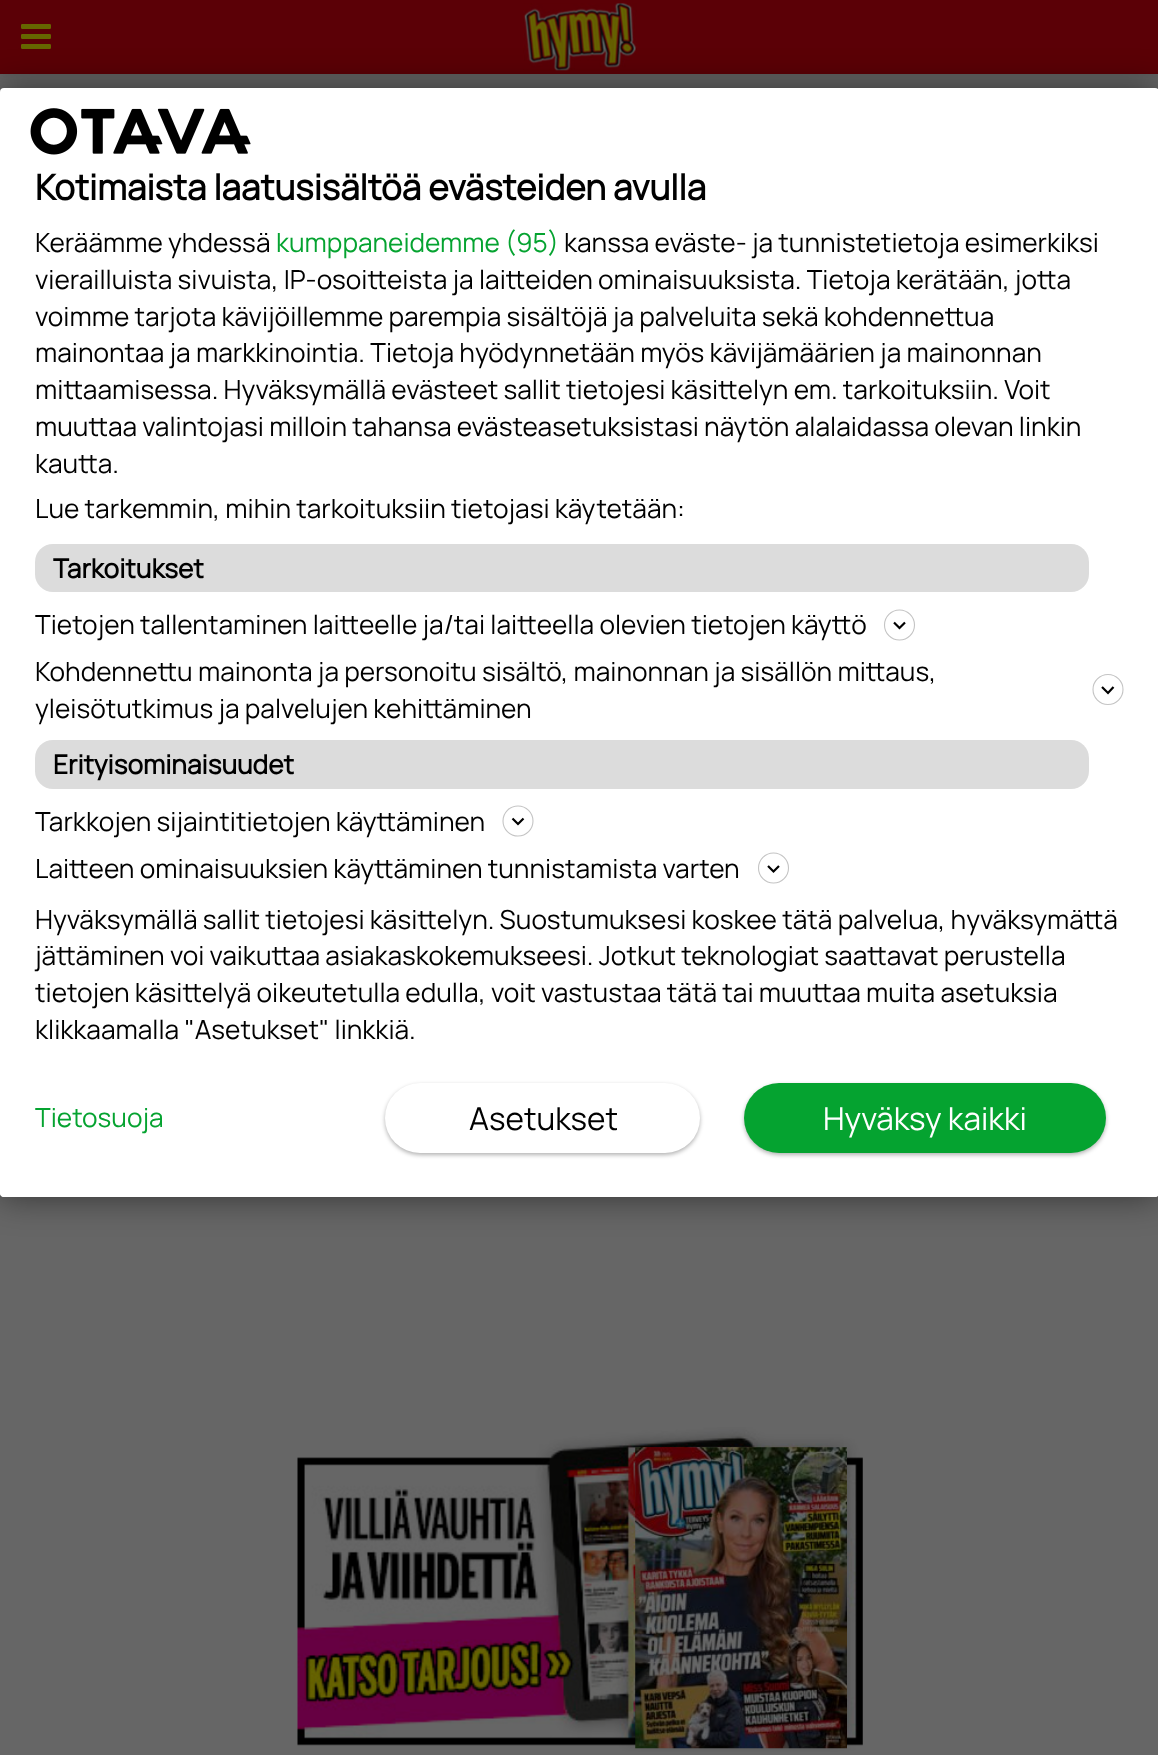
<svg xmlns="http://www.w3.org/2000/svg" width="1158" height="1755">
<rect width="100%" height="100%" fill="#666"/>
<rect y="2" width="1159" height="73" fill="#0000001a" filter="blur(4.5px)"/>
<rect width="1158" height="74" fill="#5b0006"/>
<image x="21" y="24" width="30" height="25" href="media/1.png"/>
<image x="523" y="3" width="114" height="68" href="media/2.png"/>
<image x="297" y="1427" width="566" height="325" href="media/3.png"/>
<image x="635" y="1447" width="212" height="302" href="media/4.png"/>
<rect y="88" width="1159" height="1109" rx="4" fill="#00000080" filter="blur(17.5px)"/>
<rect y="88" width="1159" height="1109" rx="4" fill="#fff"/>
<image x="30" y="108" width="221" height="47" href="media/5.png"/>
<text x="35" y="200" style="font-family:Manrope;font-size:35px;font-weight:bold;fill:#000">Kotimaista laatusisältöä evästeiden avulla</text>
<text x="35" y="252" style="font-family:Manrope;font-size:26.25px;font-weight:200;fill:#000">Keräämme yhdessä</text>
<text x="276" y="252" style="font-family:Manrope;font-size:26.25px;font-weight:200;fill:#05a330">kumppaneidemme (95)</text>
<text x="564" y="252" style="font-family:Manrope;font-size:26.25px;font-weight:200;fill:#000">kanssa eväste- ja tunnistetietoja esimerkiksi</text>
<text x="35" y="289" style="font-family:Manrope;font-size:26.25px;font-weight:200;fill:#000">vierailluista sivuista, IP-osoitteista ja laitteiden ominaisuuksista. Tietoja kerätään, jotta</text>
<text x="35" y="326" style="font-family:Manrope;font-size:26.25px;font-weight:200;fill:#000">voimme tarjota kävijöillemme parempia sisältöjä ja palveluita sekä kohdennettua</text>
<text x="35" y="362" style="font-family:Manrope;font-size:26.25px;font-weight:200;fill:#000">mainontaa ja markkinointia. Tietoja hyödynnetään myös kävijämäärien ja mainonnan</text>
<text x="35" y="399" style="font-family:Manrope;font-size:26.25px;font-weight:200;fill:#000">mittaamisessa. Hyväksymällä evästeet sallit tietojesi käsittelyn em. tarkoituksiin. Voit</text>
<text x="35" y="436" style="font-family:Manrope;font-size:26.25px;font-weight:200;fill:#000">muuttaa valintojasi milloin tahansa evästeasetuksistasi näytön alalaidassa olevan linkin</text>
<text x="35" y="473" style="font-family:Manrope;font-size:26.25px;font-weight:200;fill:#000">kautta.</text>
<text x="35" y="518" style="font-family:Manrope;font-size:26.25px;font-weight:200;fill:#000">Lue tarkemmin, mihin tarkoituksiin tietojasi käytetään:</text>
<rect x="35" y="544" width="1054" height="48" rx="18" fill="#dcdcdc"/>
<text x="53" y="578" style="font-family:Manrope;font-size:26.25px;font-weight:bold;fill:#000">Tarkoitukset</text>
<text x="35" y="634" style="font-family:Manrope;font-size:26.25px;font-weight:200;fill:#000">Tietojen tallentaminen laitteelle ja/tai laitteella olevien tietojen käyttö</text>
<path d="M894 622.5l5.5 5.5l5.5-5.5" fill="none" stroke="#000" stroke-width="2.2"/>
<circle cx="899.5" cy="625" r="15" fill="none" stroke="#c4c4c4" stroke-width="1.1"/>
<text x="35" y="681" style="font-family:Manrope;font-size:26.25px;font-weight:200;fill:#000">Kohdennettu mainonta ja personoitu sisältö, mainonnan ja sisällön mittaus,</text>
<path d="M1102 687l6 6l5.5-6" fill="none" stroke="#000" stroke-width="2.2"/>
<circle cx="1108" cy="689.5" r="15" fill="none" stroke="#c4c4c4" stroke-width="1.1"/>
<text x="35" y="718" style="font-family:Manrope;font-size:26.25px;font-weight:200;fill:#000">yleisötutkimus ja palvelujen kehittäminen</text>
<rect x="35" y="740" width="1054" height="49" rx="18" fill="#dcdcdc"/>
<text x="53" y="774" style="font-family:Manrope;font-size:26.25px;font-weight:bold;fill:#000">Erityisominaisuudet</text>
<text x="35" y="831" style="font-family:Manrope;font-size:26.25px;font-weight:200;fill:#000">Tarkkojen sijaintitietojen käyttäminen</text>
<path d="M512.5 818.5l5.5 5.5l5.5-5.5" fill="none" stroke="#000" stroke-width="2.2"/>
<circle cx="518" cy="821" r="15" fill="none" stroke="#c4c4c4" stroke-width="1.1"/>
<text x="35" y="878" style="font-family:Manrope;font-size:26.25px;font-weight:200;fill:#000">Laitteen ominaisuuksien käyttäminen tunnistamista varten</text>
<path d="M768 866l5.5 5.5l5.5-5.5" fill="none" stroke="#000" stroke-width="2.2"/>
<circle cx="773.5" cy="868" r="15" fill="none" stroke="#c4c4c4" stroke-width="1.1"/>
<text x="35" y="929" style="font-family:Manrope;font-size:26.25px;font-weight:200;fill:#000">Hyväksymällä sallit tietojesi käsittelyn. Suostumuksesi koskee tätä palvelua, hyväksymättä</text>
<text x="35" y="965" style="font-family:Manrope;font-size:26.25px;font-weight:200;fill:#000">jättäminen voi vaikuttaa asiakaskokemukseesi. Jotkut teknologiat saattavat perustella</text>
<text x="35" y="1002" style="font-family:Manrope;font-size:26.25px;font-weight:200;fill:#000">tietojen käsittelyä oikeutetulla edulla, voit vastustaa tätä tai muuttaa muita asetuksia</text>
<text x="35" y="1039" style="font-family:Manrope;font-size:26.25px;font-weight:200;fill:#000">klikkaamalla "Asetukset" linkkiä.</text>
<path d="M0 1057h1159v136c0 2-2 4-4 4h-1151c-2 0-4-2-4-4z" fill="#fff"/>
<text x="35" y="1127" style="font-family:Manrope;font-size:26.25px;font-weight:200;fill:#05a330">Tietosuoja</text>
<rect x="385" y="1085" width="315" height="70" rx="35" fill="#0000004d" filter="blur(2px)"/>
<rect x="385" y="1083" width="315" height="70" rx="35" fill="#fff"/>
<text x="469" y="1130" style="font-family:Manrope;font-size:31.5px;font-weight:200;fill:#000">Asetukset</text>
<rect x="744" y="1085" width="362" height="70" rx="35" fill="#0000004d" filter="blur(2px)"/>
<rect x="744" y="1083" width="362" height="70" rx="35" fill="#05a330"/>
<text x="823" y="1130" style="font-family:Manrope;font-size:31.5px;font-weight:200;fill:#fff">Hyväksy kaikki</text>
</svg>
